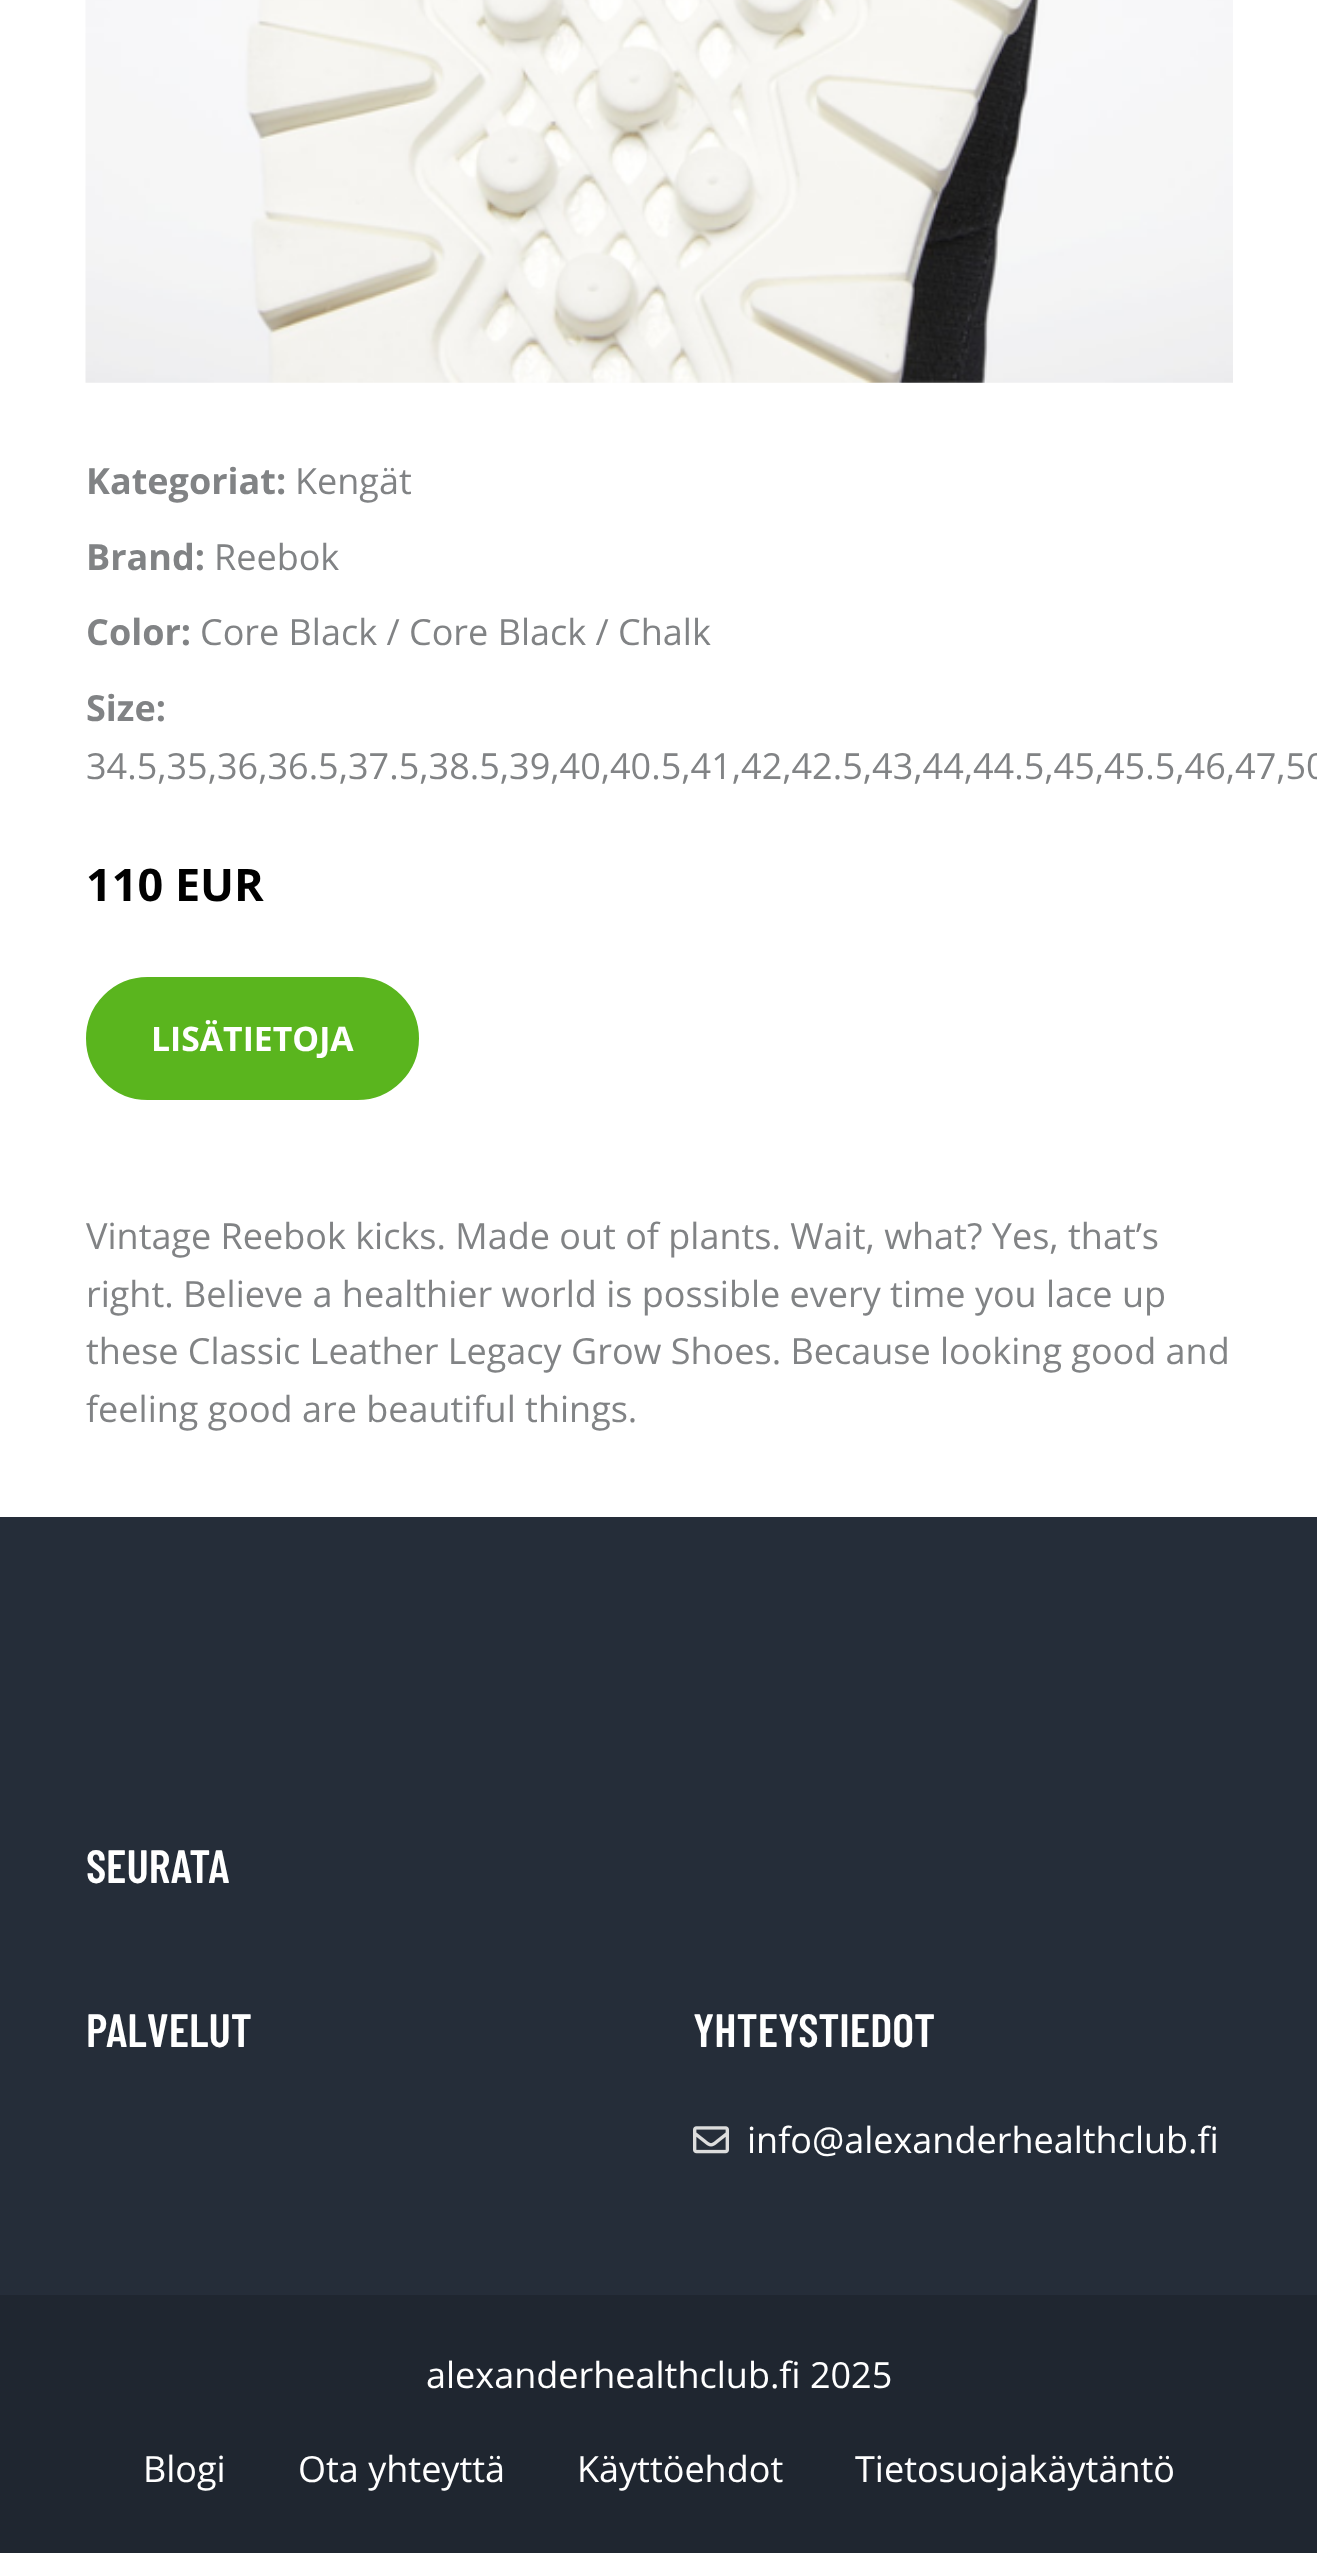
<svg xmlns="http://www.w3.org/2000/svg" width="1317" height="2553">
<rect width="100%" height="100%" fill="#fff"/>
<image x="85" y="0" width="1148" height="383" href="media/1.png"/>
<text x="86" y="494" style="font-family:Open Sans;font-size:36px;font-weight:bold;fill:#818385">Kategoriat:</text>
<text x="295" y="494" style="font-family:Open Sans;font-size:36px;fill:#818385">Kengät</text>
<text x="86" y="570" style="font-family:Open Sans;font-size:36px;font-weight:bold;fill:#818385">Brand:</text>
<text x="214" y="570" style="font-family:Open Sans;font-size:36px;fill:#818385">Reebok</text>
<text x="86" y="645" style="font-family:Open Sans;font-size:36px;font-weight:bold;fill:#818385">Color:</text>
<text x="200" y="645" style="font-family:Open Sans;font-size:36px;fill:#818385">Core Black / Core Black / Chalk</text>
<text x="86" y="721" style="font-family:Open Sans;font-size:36px;font-weight:bold;fill:#818385">Size:</text>
<text x="86" y="779" style="font-family:Open Sans;font-size:36px;fill:#818385">34.5,35,36,36.5,37.5,38.5,39,40,40.5,41,42,42.5,43,44,44.5,45,45.5,46,47,50</text>
<text x="86" y="901" style="font-family:Open Sans;font-size:45px;font-weight:bold;fill:#000">110 EUR</text>
<rect x="87" y="978" width="331" height="121" rx="60.5" fill="#5ab51e" stroke="#5ab51e" stroke-width="2"/>
<text x="151" y="1051" style="font-family:Open Sans;font-size:33.75px;font-weight:bold;fill:#fff">LISÄTIETOJA</text>
<text x="86" y="1249" style="font-family:Open Sans;font-size:36px;fill:#818385">Vintage Reebok kicks. Made out of plants. Wait, what? Yes, that’s</text>
<text x="86" y="1307" style="font-family:Open Sans;font-size:36px;fill:#818385">right. Believe a healthier world is possible every time you lace up</text>
<text x="86" y="1364" style="font-family:Open Sans;font-size:36px;fill:#818385">these Classic Leather Legacy Grow Shoes. Because looking good and</text>
<text x="86" y="1422" style="font-family:Open Sans;font-size:36px;fill:#818385">feeling good are beautiful things.</text>
<rect y="1517" width="1317" height="778" fill="#252d39"/>
<text x="86" y="1883" style="font-family:Barlow Condensed;font-size:46.75px;font-weight:600;fill:#fff">SEURATA</text>
<text x="86" y="2047" style="font-family:Barlow Condensed;font-size:46.75px;font-weight:600;fill:#fff">PALVELUT</text>
<text x="693" y="2047" style="font-family:Barlow Condensed;font-size:46.75px;font-weight:600;fill:#fff">YHTEYSTIEDOT</text>
<image x="693" y="2126" width="36" height="28" href="media/2.png"/>
<text x="747" y="2153" style="font-family:Open Sans;font-size:36px;fill:#fff">info@alexanderhealthclub.fi</text>
<rect y="2295" width="1317" height="258" fill="#1f2630"/>
<text x="426" y="2388" style="font-family:Open Sans;font-size:36px;fill:#fff">alexanderhealthclub.fi 2025</text>
<text x="143" y="2482" style="font-family:Open Sans;font-size:36px;fill:#fff">Blogi</text>
<text x="298" y="2482" style="font-family:Open Sans;font-size:36px;fill:#fff">Ota yhteyttä</text>
<text x="577" y="2482" style="font-family:Open Sans;font-size:36px;fill:#fff">Käyttöehdot</text>
<text x="855" y="2482" style="font-family:Open Sans;font-size:36px;fill:#fff">Tietosuojakäytäntö</text>
</svg>
